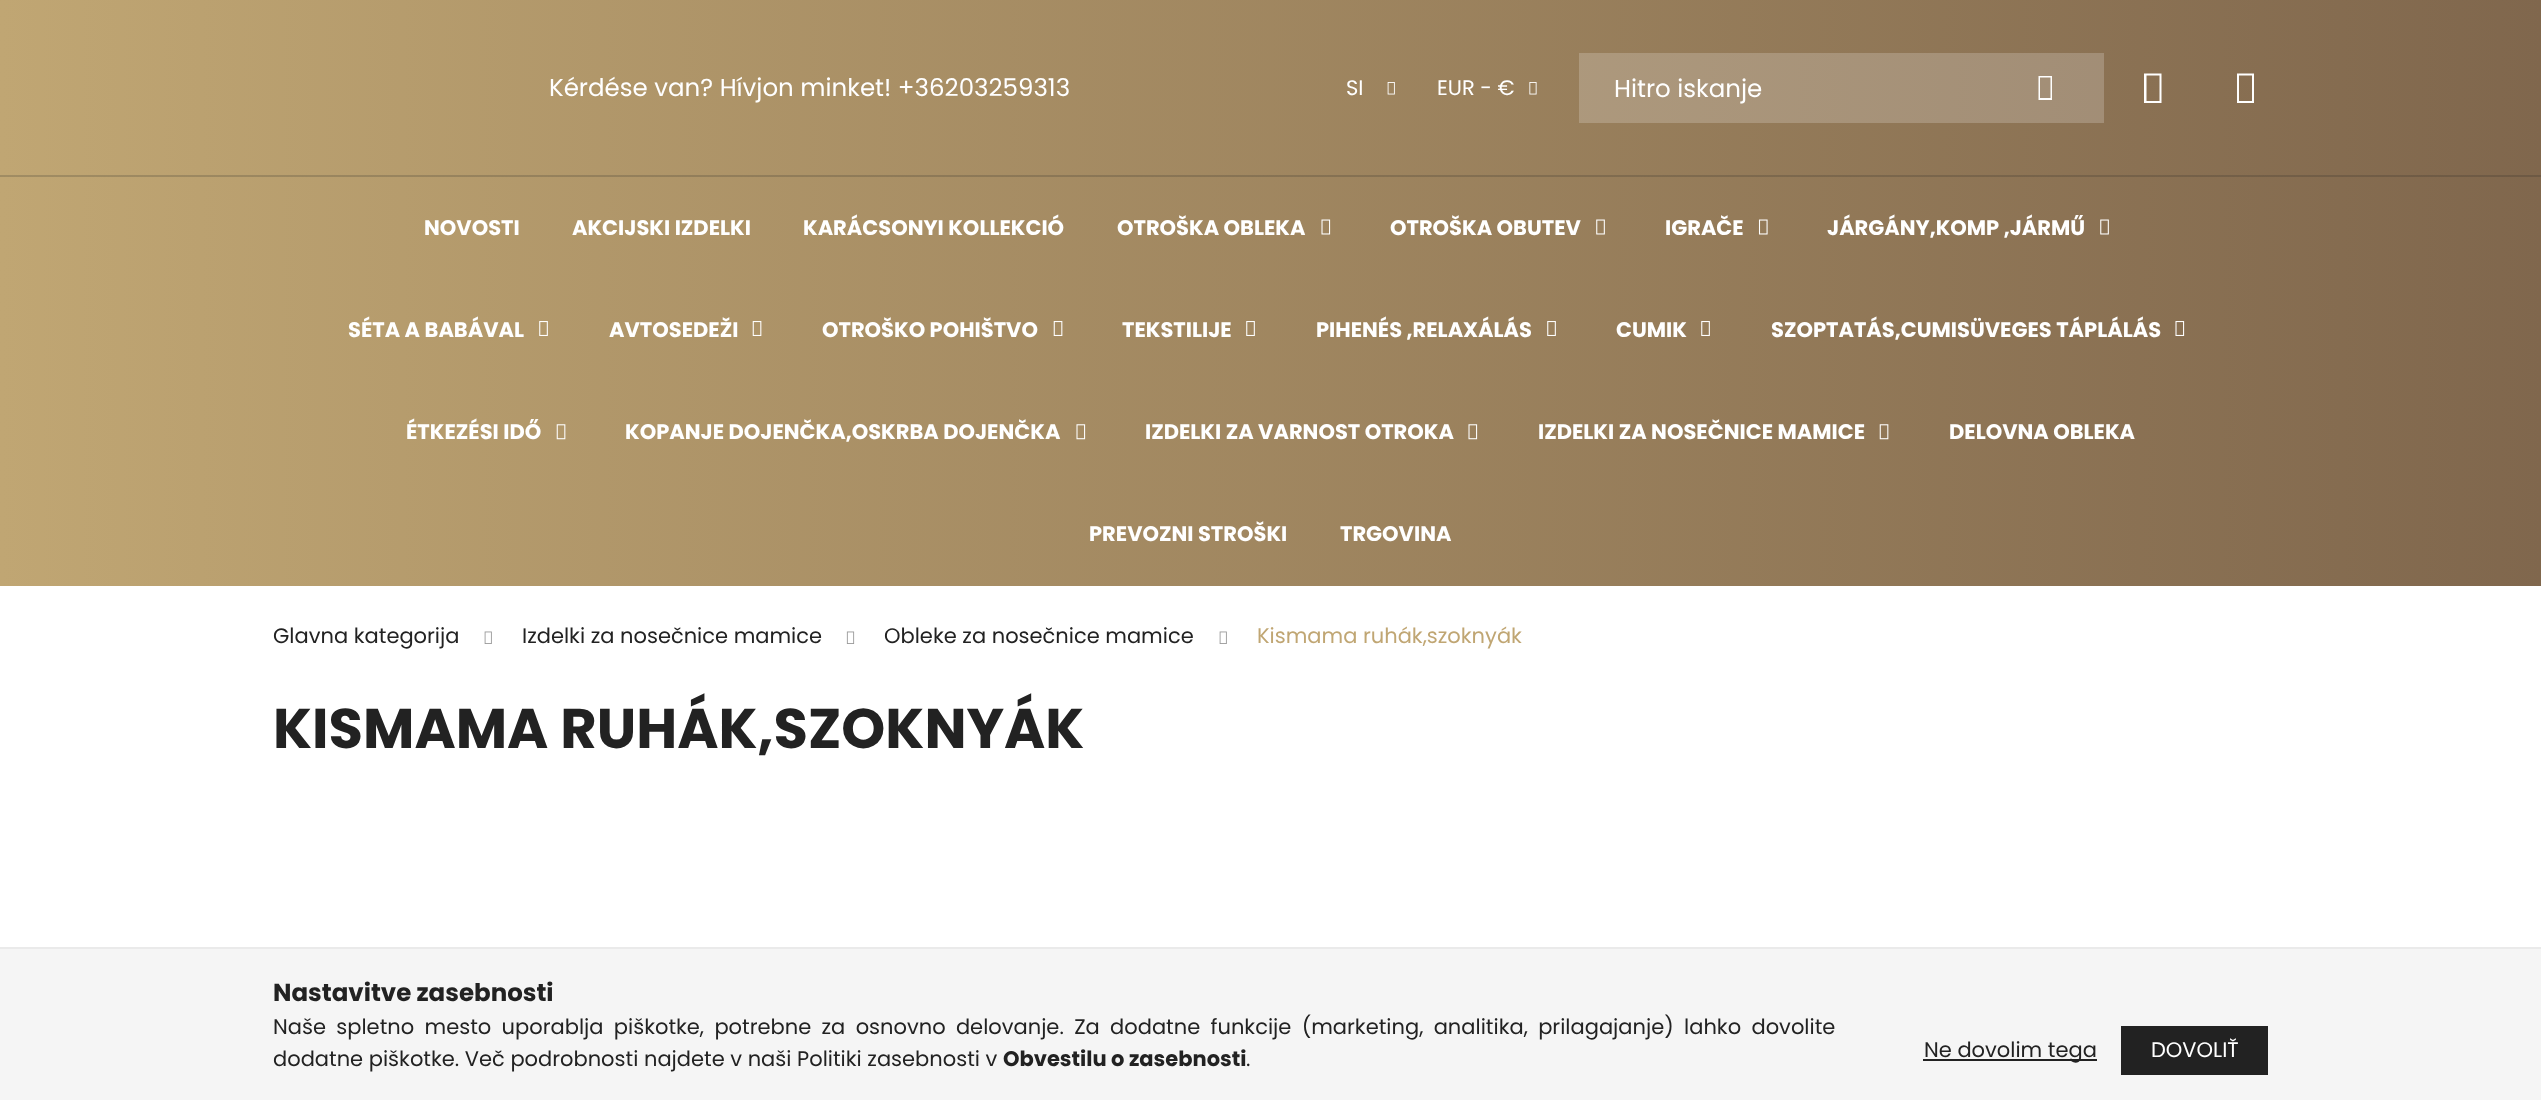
<svg xmlns="http://www.w3.org/2000/svg" width="2541" height="1100">
<defs>
<linearGradient id="g1" gradientUnits="userSpaceOnUse" x1="0" y1="88" x2="2541" y2="87"><stop offset="0" stop-color="#c0a673"/><stop offset="1" stop-color="#80674d"/></linearGradient>
<linearGradient id="g2" gradientUnits="userSpaceOnUse" x1="0" y1="88" x2="2541" y2="87"><stop offset="0" stop-color="#cdb88f"/><stop offset="1" stop-color="#998571"/></linearGradient>
<linearGradient id="g3" gradientUnits="userSpaceOnUse" x1="0" y1="382" x2="2541" y2="381"><stop offset="0" stop-color="#c0a673"/><stop offset="1" stop-color="#80674d"/></linearGradient>
<linearGradient id="g4" gradientUnits="userSpaceOnUse" x1="0" y1="382" x2="2541" y2="381"><stop offset="0" stop-color="#a08c63"/><stop offset="1" stop-color="#6d5944"/></linearGradient>
<linearGradient id="g5" gradientUnits="userSpaceOnUse" x1="1827" y1="1050" x2="2268" y2="1050"><stop offset="0" stop-color="#c0a673"/><stop offset="0.33" stop-color="#80674d"/><stop offset="0.67" stop-color="#222"/><stop offset="1" stop-color="#222"/></linearGradient>
</defs>
<rect width="100%" height="100%" fill="#fff"/>
<rect width="2541" height="175" fill="url(#g1)"/>
<rect x="1579" y="53" width="525" height="70" fill="url(#g2)"/>
<text x="549" y="96" style="font-family:Poppins;font-size:24.5px;fill:#fff">Kérdése van? Hívjon minket! +36203259313</text>
<text x="1346" y="95" style="font-family:Poppins;font-size:21px;fill:#fff">SI</text>
<image x="1387" y="82" width="8" height="13" href="media/1.png"/>
<text x="1437" y="95" style="font-family:Poppins;font-size:21px;fill:#fff">EUR - €</text>
<image x="1529" y="82" width="8" height="13" href="media/2.png"/>
<text x="1614" y="97" style="font-family:Poppins;font-size:24.5px;fill:#fff">Hitro iskanje</text>
<path d="M2038.5 100v-24h13.5v24zm1.5-2h10.5v-20.5h-10.5z" fill="#fff"/>
<path d="M2144 103v-29.5h17.5v29.5zm2.5-2h13v-25.5h-13z" fill="#fff"/>
<path d="M2237 103v-29.5h17v29.5zm2-2h13v-25.5h-13z" fill="#fff"/>
<rect y="177" width="2541" height="409" fill="url(#g3)"/>
<rect y="175" width="2541" height="2" fill="url(#g4)"/>
<text x="424" y="235" style="font-family:Poppins;font-size:21px;font-weight:bold;fill:#fff">NOVOSTI</text>
<text x="572" y="235" style="font-family:Poppins;font-size:21px;font-weight:bold;fill:#fff">AKCIJSKI IZDELKI</text>
<text x="803" y="235" style="font-family:Poppins;font-size:21px;font-weight:bold;fill:#fff">KARÁCSONYI KOLLEKCIÓ</text>
<text x="1117" y="235" style="font-family:Poppins;font-size:21px;font-weight:bold;fill:#fff">OTROŠKA OBLEKA</text>
<image x="1321" y="219" width="10" height="16" href="media/3.png"/>
<text x="1390" y="235" style="font-family:Poppins;font-size:21px;font-weight:bold;fill:#fff">OTROŠKA OBUTEV</text>
<image x="1596" y="219" width="9" height="16" href="media/4.png"/>
<text x="1665" y="235" style="font-family:Poppins;font-size:21px;font-weight:bold;fill:#fff">IGRAČE</text>
<image x="1758" y="219" width="10" height="16" href="media/5.png"/>
<text x="1827" y="235" style="font-family:Poppins;font-size:21px;font-weight:bold;fill:#fff">JÁRGÁNY,KOMP ,JÁRMŰ</text>
<image x="2100" y="219" width="9" height="16" href="media/6.png"/>
<text x="348" y="337" style="font-family:Poppins;font-size:21px;font-weight:bold;fill:#fff">SÉTA A BABÁVAL</text>
<image x="539" y="321" width="9" height="15" href="media/7.png"/>
<text x="609" y="337" style="font-family:Poppins;font-size:21px;font-weight:bold;fill:#fff">AVTOSEDEŽI</text>
<image x="752" y="321" width="10" height="15" href="media/8.png"/>
<text x="822" y="337" style="font-family:Poppins;font-size:21px;font-weight:bold;fill:#fff">OTROŠKO POHIŠTVO</text>
<image x="1053" y="321" width="10" height="15" href="media/9.png"/>
<text x="1122" y="337" style="font-family:Poppins;font-size:21px;font-weight:bold;fill:#fff">TEKSTILIJE</text>
<image x="1246" y="321" width="9" height="15" href="media/10.png"/>
<text x="1316" y="337" style="font-family:Poppins;font-size:21px;font-weight:bold;fill:#fff">PIHENÉS ,RELAXÁLÁS</text>
<image x="1547" y="321" width="9" height="15" href="media/11.png"/>
<text x="1616" y="337" style="font-family:Poppins;font-size:21px;font-weight:bold;fill:#fff">CUMIK</text>
<image x="1701" y="321" width="9" height="15" href="media/12.png"/>
<text x="1771" y="337" style="font-family:Poppins;font-size:21px;font-weight:bold;fill:#fff">SZOPTATÁS,CUMISÜVEGES TÁPLÁLÁS</text>
<image x="2175" y="321" width="10" height="15" href="media/13.png"/>
<text x="406" y="439" style="font-family:Poppins;font-size:21px;font-weight:bold;fill:#fff">ÉTKEZÉSI IDŐ</text>
<image x="556" y="424" width="10" height="16" href="media/14.png"/>
<text x="625" y="439" style="font-family:Poppins;font-size:21px;font-weight:bold;fill:#fff">KOPANJE DOJENČKA,OSKRBA DOJENČKA</text>
<image x="1076" y="424" width="10" height="16" href="media/15.png"/>
<text x="1145" y="439" style="font-family:Poppins;font-size:21px;font-weight:bold;fill:#fff">IZDELKI ZA VARNOST OTROKA</text>
<image x="1468" y="424" width="10" height="16" href="media/16.png"/>
<text x="1538" y="439" style="font-family:Poppins;font-size:21px;font-weight:bold;fill:#fff">IZDELKI ZA NOSEČNICE MAMICE</text>
<image x="1879" y="424" width="10" height="16" href="media/17.png"/>
<text x="1949" y="439" style="font-family:Poppins;font-size:21px;font-weight:bold;fill:#fff">DELOVNA OBLEKA</text>
<text x="1089" y="541" style="font-family:Poppins;font-size:21px;font-weight:bold;fill:#fff">PREVOZNI STROŠKI</text>
<text x="1340" y="541" style="font-family:Poppins;font-size:21px;font-weight:bold;fill:#fff">TRGOVINA</text>
<text x="273" y="643" style="font-family:Poppins;font-size:21px;fill:#222">Glavna kategorija</text>
<image x="484" y="631" width="8" height="13" href="media/18.png"/>
<text x="522" y="643" style="font-family:Poppins;font-size:21px;fill:#222">Izdelki za nosečnice mamice</text>
<image x="846" y="631" width="9" height="13" href="media/19.png"/>
<text x="884" y="643" style="font-family:Poppins;font-size:21px;fill:#222">Obleke za nosečnice mamice</text>
<image x="1219" y="631" width="8" height="13" href="media/18.png"/>
<text x="1257" y="643" style="font-family:Poppins;font-size:21px;fill:#c0a673">Kismama ruhák,szoknyák</text>
<text x="273" y="748" style="font-family:Poppins;font-size:56px;font-weight:bold;fill:#222">KISMAMA RUHÁK,SZOKNYÁK</text>
<rect y="949" width="2541" height="151" fill="#f5f5f5"/>
<rect y="947" width="2541" height="2" fill="#eaeaea"/>
<text x="273" y="1001" style="font-family:Poppins;font-size:24.5px;font-weight:bold;fill:#222">Nastavitve zasebnosti</text>
<text x="273" y="1034" word-spacing="4.75" style="font-family:Poppins;font-size:21px;fill:#222">Naše spletno mesto uporablja piškotke, potrebne za osnovno delovanje. Za dodatne funkcije (marketing, analitika, prilagajanje) lahko dovolite</text>
<text x="273" y="1066" style="font-family:Poppins;font-size:21px;fill:#222">dodatne piškotke. Več podrobnosti najdete v naši Politiki zasebnosti v</text>
<text x="1003" y="1066" style="font-family:Poppins;font-size:21px;font-weight:bold;fill:#222">Obvestilu o zasebnosti</text>
<text x="1246" y="1066" style="font-family:Poppins;font-size:21px;fill:#222">.</text>
<rect x="1923" y="1059" width="174" height="2" fill="#222"/>
<text x="1924" y="1057" style="font-family:Poppins;font-size:21px;fill:#222">Ne dovolim tega</text>
<rect x="2121" y="1026" width="147" height="49" fill="url(#g5)"/>
<text x="2151" y="1057" style="font-family:Poppins;font-size:21px;fill:#fff">DOVOLIŤ</text>
</svg>
